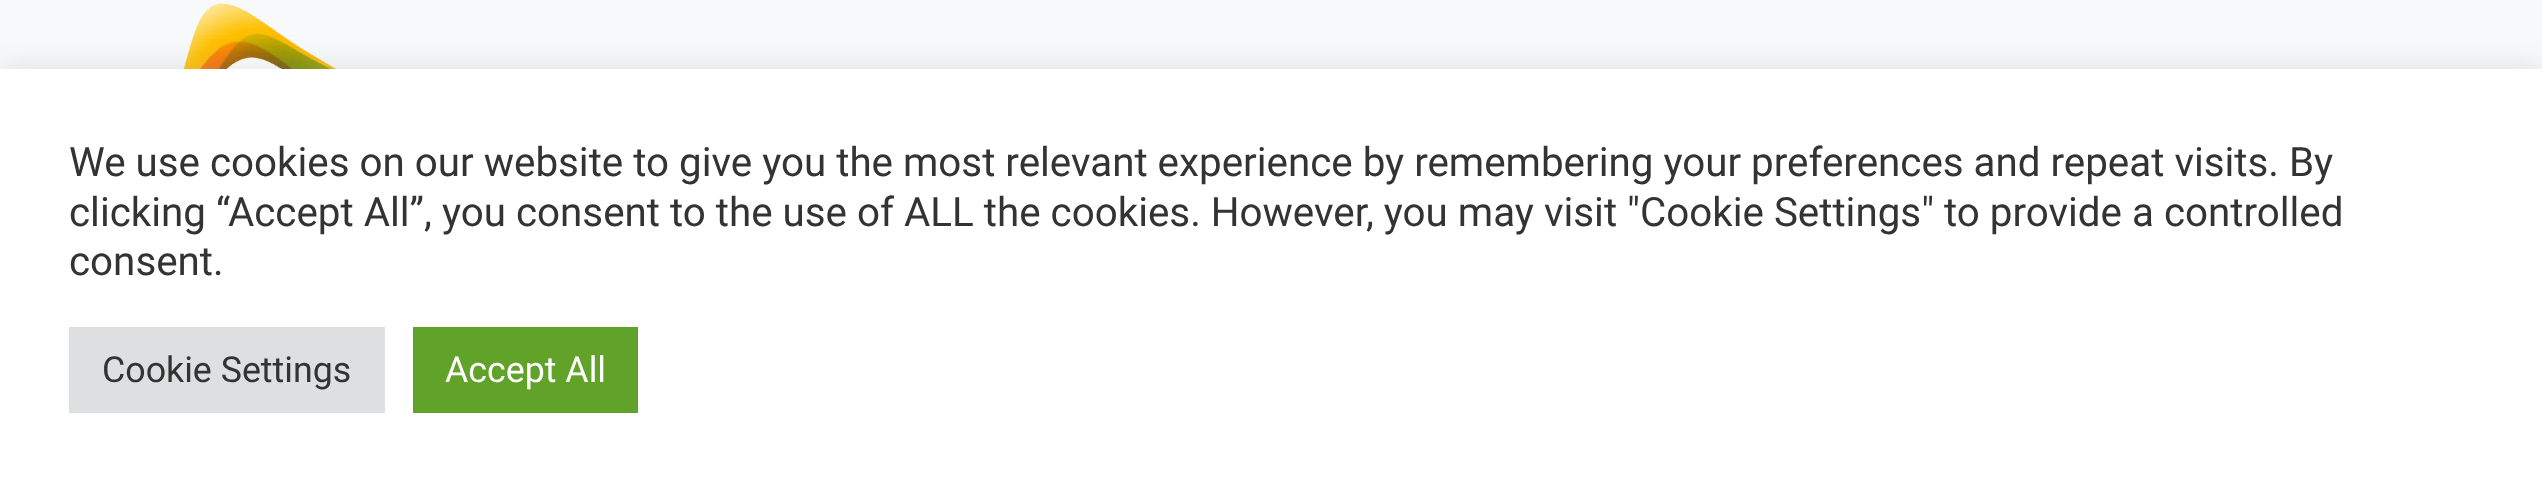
<svg xmlns="http://www.w3.org/2000/svg" width="2542" height="495">
<rect width="100%" height="100%" fill="#f8f9fb"/>
<image x="183" y="3" width="154" height="66" href="media/1.png"/>
<rect y="66" width="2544" height="426" fill="#acabab4d" filter="blur(14px)"/>
<rect y="69" width="2542" height="426" fill="#fff"/>
<text x="69" y="176" style="font-family:Roboto;font-size:40.33px;fill:#333">We use cookies on our website to give you the most relevant experience by remembering your preferences and repeat visits. By</text>
<text x="69" y="226" style="font-family:Roboto;font-size:40.33px;fill:#333">clicking “Accept All”, you consent to the use of ALL the cookies. However, you may visit "Cookie Settings" to provide a controlled</text>
<text x="69" y="275" style="font-family:Roboto;font-size:40.33px;fill:#333">consent.</text>
<rect x="69" y="327" width="316" height="86" fill="#dedfe0"/>
<text x="102" y="382" style="font-family:Roboto;font-size:35.75px;fill:#333">Cookie Settings</text>
<rect x="413" y="327" width="225" height="86" fill="#61a229"/>
<text x="445" y="382" style="font-family:Roboto;font-size:35.75px;fill:#fff">Accept All</text>
</svg>
